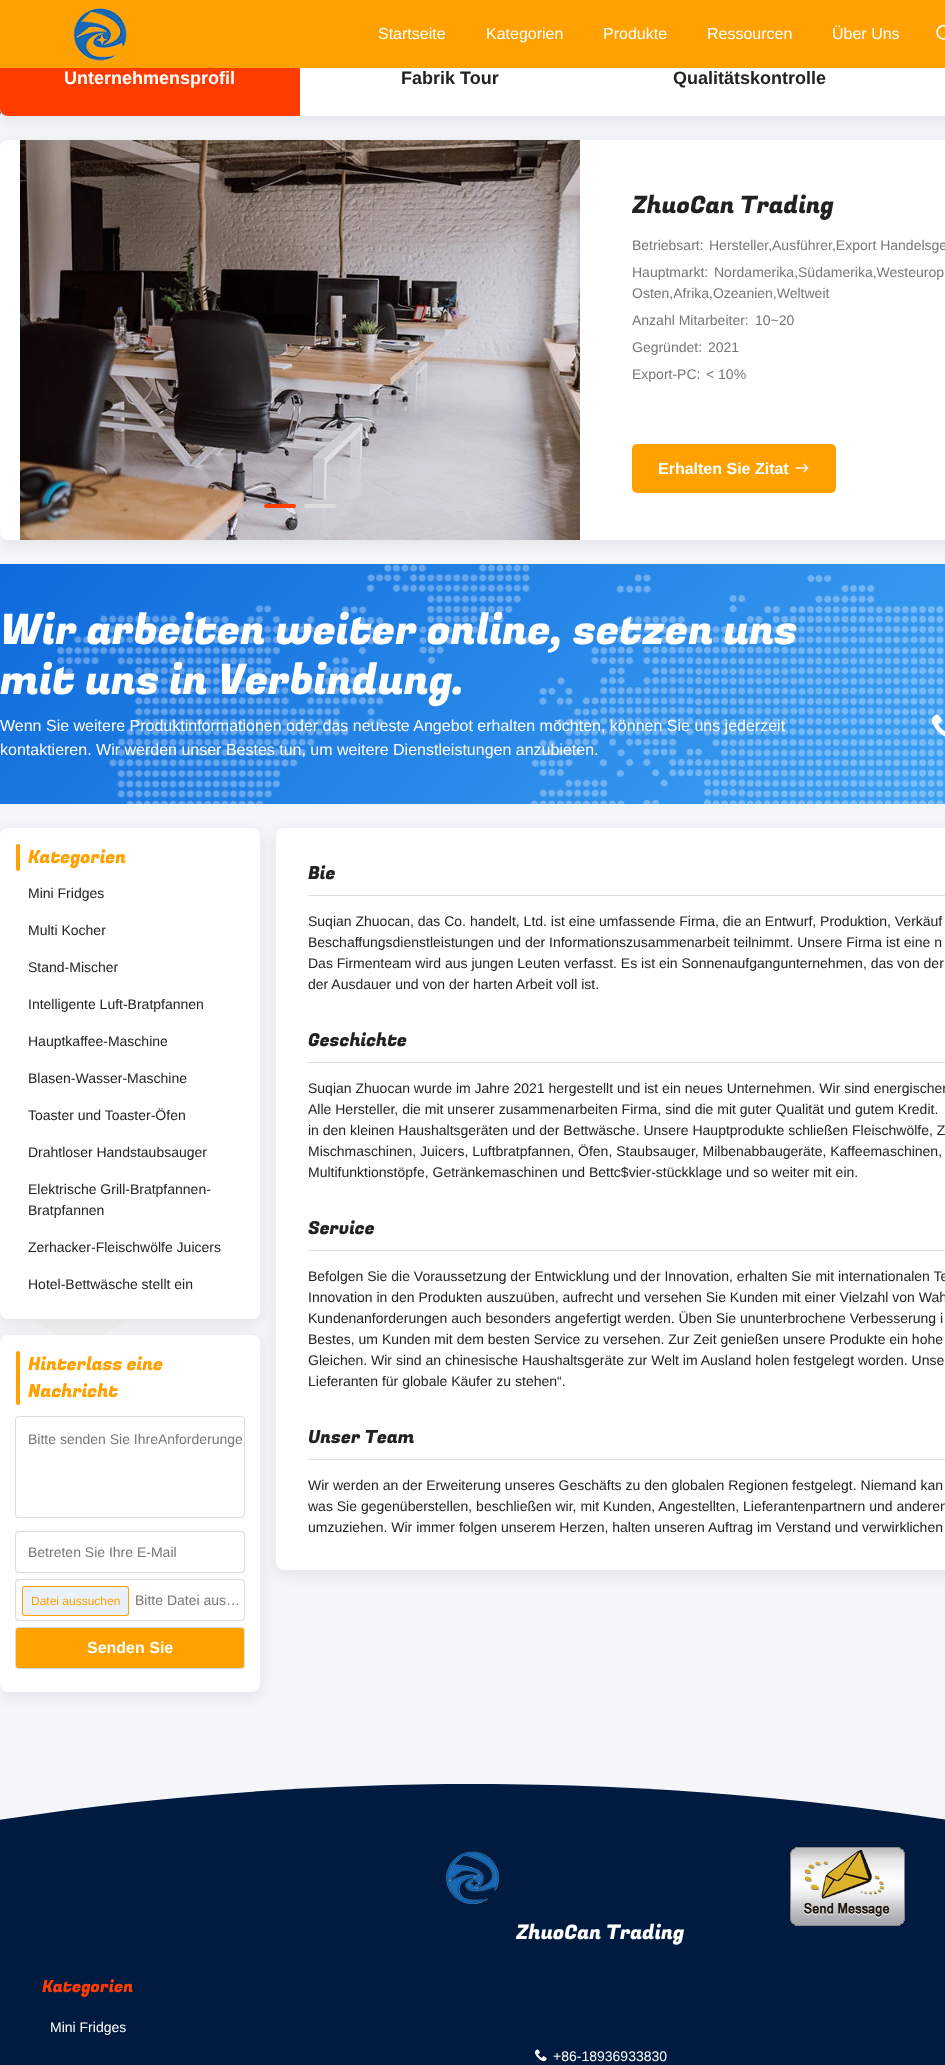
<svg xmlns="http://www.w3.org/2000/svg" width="945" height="2065">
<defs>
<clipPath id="clip1"><path d="M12 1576h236v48h-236zm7 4h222c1.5 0 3 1.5 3 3v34c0 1.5-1.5 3-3 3h-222c-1.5 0-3-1.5-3-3v-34c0-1.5 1.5-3 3-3z" clip-rule="evenodd"/></clipPath>
</defs>
<rect width="100%" height="100%" fill="#f4f6f9"/>
<image x="0" y="108" width="1" height="6" href="media/8.png"/>
<image x="0" y="108" width="3" height="6" href="media/9.png"/>
<rect y="44" width="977" height="76" rx="8" fill="#00000014" filter="blur(8px)"/>
<path d="M8 40h937v76h-937c-4.5 0-8-3.5-8-8v-60c0-4.5 3.5-8 8-8z" fill="#fff"/>
<path d="M8 40h292v76h-292c-4.5 0-8-3.5-8-8v-60c0-4.5 3.5-8 8-8z" fill="#ff3d00"/>
<rect width="945" height="68" fill="#ffa100"/>
<image x="73" y="8" width="54" height="53" href="media/1.png"/>
<text x="378" y="39" style="font-family:Liberation Sans;font-size:16px;fill:#fff">Startseite</text>
<text x="486" y="39" style="font-family:Liberation Sans;font-size:16px;fill:#fff">Kategorien</text>
<text x="603" y="39" style="font-family:Liberation Sans;font-size:16px;fill:#fff">Produkte</text>
<text x="707" y="39" style="font-family:Liberation Sans;font-size:16px;fill:#fff">Ressourcen</text>
<text x="832" y="39" style="font-family:Liberation Sans;font-size:16px;fill:#fff">Über Uns</text>
<image x="936" y="24" width="9" height="16" href="media/2.png"/>
<text x="64" y="84" style="font-family:Liberation Sans;font-size:18px;font-weight:bold;fill:#fff">Unternehmensprofil</text>
<text x="401" y="84" style="font-family:Liberation Sans;font-size:18px;font-weight:bold;fill:#222">Fabrik Tour</text>
<text x="673" y="84" style="font-family:Liberation Sans;font-size:18px;font-weight:bold;fill:#222">Qualitätskontrolle</text>
<rect y="144" width="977" height="400" rx="8" fill="#00000014" filter="blur(8px)"/>
<path d="M8 140h937v400h-937c-4.5 0-8-3.5-8-8v-384c0-4.5 3.5-8 8-8z" fill="#fff"/>
<image x="20" y="140" width="560" height="400" href="media/3.png"/>
<rect x="264" y="504" width="32" height="4" rx="2" fill="#ff3d00"/>
<rect x="304" y="504" width="32" height="4" rx="2" fill="#ddd"/>
<text x="632" y="213" style="font-family:Fugaz One;font-size:24px;fill:#222">ZhuoCan Trading</text>
<text x="632" y="250" style="font-family:Liberation Sans;font-size:14px;fill:#777">Betriebsart:</text>
<text x="709" y="250" style="font-family:Liberation Sans;font-size:14px;fill:#777">Hersteller,Ausführer,Export Handelsge</text>
<text x="632" y="277" style="font-family:Liberation Sans;font-size:14px;fill:#777">Hauptmarkt:</text>
<text x="714" y="277" style="font-family:Liberation Sans;font-size:14px;fill:#777">Nordamerika,Südamerika,Westeurop</text>
<text x="632" y="298" style="font-family:Liberation Sans;font-size:14px;fill:#777">Osten,Afrika,Ozeanien,Weltweit</text>
<text x="632" y="325" style="font-family:Liberation Sans;font-size:14px;fill:#777">Anzahl Mitarbeiter:</text>
<text x="755" y="325" style="font-family:Liberation Sans;font-size:14px;fill:#777">10~20</text>
<text x="632" y="352" style="font-family:Liberation Sans;font-size:14px;fill:#777">Gegründet:</text>
<text x="708" y="352" style="font-family:Liberation Sans;font-size:14px;fill:#777">2021</text>
<text x="632" y="379" style="font-family:Liberation Sans;font-size:14px;fill:#777">Export-PC:</text>
<text x="706" y="379" style="font-family:Liberation Sans;font-size:14px;fill:#777">&lt; 10%</text>
<rect x="632" y="444" width="204" height="49" rx="5" fill="#ffa100"/>
<text x="658" y="474" style="font-family:Liberation Sans;font-size:16px;font-weight:bold;fill:#fff">Erhalten Sie Zitat</text>
<image x="795" y="463" width="14" height="10" href="media/4.png"/>
<image x="0" y="564" width="945" height="240" href="media/5.png"/>
<text x="0" y="644" style="font-family:Fugaz One;font-size:42px;fill:#fff">Wir arbeiten weiter online, setzen uns</text>
<text x="0" y="694" style="font-family:Fugaz One;font-size:42px;fill:#fff">mit uns in Verbindung.</text>
<text x="0" y="731" style="font-family:Liberation Sans;font-size:16px;fill:#fff">Wenn Sie weitere Produktinformationen oder das neueste Angebot erhalten möchten, können Sie uns jederzeit</text>
<text x="0" y="755" style="font-family:Liberation Sans;font-size:16px;fill:#fff">kontaktieren. Wir werden unser Bestes tun, um weitere Dienstleistungen anzubieten.</text>
<image x="931" y="714" width="14" height="23" href="media/6.png"/>
<image x="29" y="1319" width="102" height="16" href="media/7.png"/>
<rect y="832" width="260" height="491" rx="8" fill="#00000014" filter="blur(8px)"/>
<rect y="828" width="260" height="491" rx="8" fill="#fff"/>
<rect x="16" y="844" width="4" height="27" rx="2" fill="#ffa100"/>
<text x="28" y="863" style="font-family:Fugaz One;font-size:18px;fill:#ffa100">Kategorien</text>
<text x="28" y="898" style="font-family:Liberation Sans;font-size:14px;fill:#222">Mini Fridges</text>
<text x="28" y="935" style="font-family:Liberation Sans;font-size:14px;fill:#222">Multi Kocher</text>
<text x="28" y="972" style="font-family:Liberation Sans;font-size:14px;fill:#222">Stand-Mischer</text>
<text x="28" y="1009" style="font-family:Liberation Sans;font-size:14px;fill:#222">Intelligente Luft-Bratpfannen</text>
<text x="28" y="1046" style="font-family:Liberation Sans;font-size:14px;fill:#222">Hauptkaffee-Maschine</text>
<text x="28" y="1083" style="font-family:Liberation Sans;font-size:14px;fill:#222">Blasen-Wasser-Maschine</text>
<text x="28" y="1120" style="font-family:Liberation Sans;font-size:14px;fill:#222">Toaster und Toaster-Öfen</text>
<text x="28" y="1157" style="font-family:Liberation Sans;font-size:14px;fill:#222">Drahtloser Handstaubsauger</text>
<text x="28" y="1194" style="font-family:Liberation Sans;font-size:14px;fill:#222">Elektrische Grill-Bratpfannen-</text>
<text x="28" y="1215" style="font-family:Liberation Sans;font-size:14px;fill:#222">Bratpfannen</text>
<text x="28" y="1252" style="font-family:Liberation Sans;font-size:14px;fill:#222">Zerhacker-Fleischwölfe Juicers</text>
<text x="28" y="1289" style="font-family:Liberation Sans;font-size:14px;fill:#222">Hotel-Bettwäsche stellt ein</text>
<rect y="1339" width="260" height="357" rx="8" fill="#00000014" filter="blur(8px)"/>
<rect y="1335" width="260" height="357" rx="8" fill="#fff"/>
<rect x="16" y="1351" width="4" height="54" rx="2" fill="#ffa100"/>
<text x="28" y="1370" style="font-family:Fugaz One;font-size:18px;fill:#ffa100">Hinterlass eine</text>
<text x="28" y="1397" style="font-family:Fugaz One;font-size:18px;fill:#ffa100">Nachricht</text>
<rect x="15" y="1416" width="230" height="102" rx="4" fill="#ddd" filter="blur(0.5px)"/>
<rect x="16" y="1417" width="228" height="100" rx="3" fill="#fff"/>
<text x="28" y="1444" style="font-family:Liberation Sans;font-size:14px;fill:#777">Bitte senden Sie IhreAnforderunge</text>
<rect x="15" y="1531" width="230" height="42" rx="4" fill="#ddd" filter="blur(0.5px)"/>
<rect x="16" y="1532" width="228" height="40" rx="3" fill="#fff"/>
<text x="28" y="1557" style="font-family:Liberation Sans;font-size:14px;fill:#777">Betreten Sie Ihre E-Mail</text>
<g clip-path="url(#clip1)">
<rect x="15" y="1579" width="230" height="42" rx="4" fill="#ddd" filter="blur(0.5px)"/>
</g>
<rect x="22" y="1586" width="107" height="30" rx="3" fill="#ffa100" filter="blur(0.5px)"/>
<rect x="23" y="1587" width="105" height="28" rx="2" fill="#ebf1fa"/>
<text x="31" y="1605" style="font-family:Liberation Sans;font-size:12px;fill:#ffa100">Datei aussuchen</text>
<text x="135" y="1605" style="font-family:Liberation Sans;font-size:14px;fill:#777">Bitte Datei aus…</text>
<rect x="15" y="1627" width="230" height="42" rx="4" fill="#ddd" filter="blur(0.5px)"/>
<rect x="16" y="1628" width="228" height="40" rx="3" fill="#ffa100"/>
<text x="87" y="1653" style="font-family:Liberation Sans;font-size:16px;font-weight:bold;fill:#fff">Senden Sie</text>
<rect x="276" y="832" width="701" height="742" rx="8" fill="#00000014" filter="blur(8px)"/>
<path d="M284 828h661v742h-661c-4.5 0-8-3.5-8-8v-726c0-4.5 3.5-8 8-8z" fill="#fff"/>
<rect x="308" y="895" width="637" height="1" fill="#ddd"/>
<text x="308" y="879" style="font-family:Fugaz One;font-size:18px;fill:#222">Bie</text>
<text x="308" y="926" style="font-family:Liberation Sans;font-size:14px;fill:#222">Suqian Zhuocan, das Co. handelt, Ltd. ist eine umfassende Firma, die an Entwurf, Produktion, Verkäuf</text>
<text x="308" y="947" style="font-family:Liberation Sans;font-size:14px;fill:#222">Beschaffungsdienstleistungen und der Informationszusammenarbeit teilnimmt. Unsere Firma ist eine n</text>
<text x="308" y="968" style="font-family:Liberation Sans;font-size:14px;fill:#222">Das Firmenteam wird aus jungen Leuten verfasst. Es ist ein Sonnenaufgangunternehmen, das von der</text>
<text x="308" y="989" style="font-family:Liberation Sans;font-size:14px;fill:#222">der Ausdauer und von der harten Arbeit voll ist.</text>
<rect x="308" y="1062" width="637" height="1" fill="#ddd"/>
<text x="308" y="1046" style="font-family:Fugaz One;font-size:18px;fill:#222">Geschichte</text>
<text x="308" y="1093" style="font-family:Liberation Sans;font-size:14px;fill:#222">Suqian Zhuocan wurde im Jahre 2021 hergestellt und ist ein neues Unternehmen. Wir sind energischer</text>
<text x="308" y="1114" style="font-family:Liberation Sans;font-size:14px;fill:#222">Alle Hersteller, die mit unserer zusammenarbeiten Firma, sind die mit guter Qualität und gutem Kredit.</text>
<text x="308" y="1135" style="font-family:Liberation Sans;font-size:14px;fill:#222">in den kleinen Haushaltsgeräten und der Bettwäsche. Unsere Hauptprodukte schließen Fleischwölfe, Z</text>
<text x="308" y="1156" style="font-family:Liberation Sans;font-size:14px;fill:#222">Mischmaschinen, Juicers, Luftbratpfannen, Öfen, Staubsauger, Milbenabbaugeräte, Kaffeemaschinen,</text>
<text x="308" y="1177" style="font-family:Liberation Sans;font-size:14px;fill:#222">Multifunktionstöpfe, Getränkemaschinen und Bettc$vier-stückklage und so weiter mit ein.</text>
<rect x="308" y="1250" width="637" height="1" fill="#ddd"/>
<text x="308" y="1234" style="font-family:Fugaz One;font-size:18px;fill:#222">Service</text>
<text x="308" y="1281" style="font-family:Liberation Sans;font-size:14px;fill:#222">Befolgen Sie die Voraussetzung der Entwicklung und der Innovation, erhalten Sie mit internationalen Te</text>
<text x="308" y="1302" style="font-family:Liberation Sans;font-size:14px;fill:#222">Innovation in den Produkten auszuüben, aufrecht und versehen Sie Kunden mit einer Vielzahl von Wah</text>
<text x="308" y="1323" style="font-family:Liberation Sans;font-size:14px;fill:#222">Kundenanforderungen auch besonders angefertigt werden. Üben Sie ununterbrochene Verbesserung i</text>
<text x="308" y="1344" style="font-family:Liberation Sans;font-size:14px;fill:#222">Bestes, um Kunden mit dem besten Service zu versehen. Zur Zeit genießen unsere Produkte ein hohe</text>
<text x="308" y="1365" style="font-family:Liberation Sans;font-size:14px;fill:#222">Gleichen. Wir sind an chinesische Haushaltsgeräte zur Welt im Ausland holen festgelegt worden. Unse</text>
<text x="308" y="1386" style="font-family:Liberation Sans;font-size:14px;fill:#222">Lieferanten für globale Käufer zu stehen“.</text>
<rect x="308" y="1459" width="637" height="1" fill="#ddd"/>
<text x="308" y="1443" style="font-family:Fugaz One;font-size:18px;fill:#222">Unser Team</text>
<text x="308" y="1490" style="font-family:Liberation Sans;font-size:14px;fill:#222">Wir werden an der Erweiterung unseres Geschäfts zu den globalen Regionen festgelegt. Niemand kan</text>
<text x="308" y="1511" style="font-family:Liberation Sans;font-size:14px;fill:#222">was Sie gegenüberstellen, beschließen wir, mit Kunden, Angestellten, Lieferantenpartnern und anderen</text>
<text x="308" y="1532" style="font-family:Liberation Sans;font-size:14px;fill:#222">umzuziehen. Wir immer folgen unserem Herzen, halten unseren Auftrag im Verstand und verwirklichen</text>
<path d="M473 1784c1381 0 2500 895 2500 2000h-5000c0-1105 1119-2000 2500-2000z" fill="#001b3f"/>
<image x="790" y="1847" width="115" height="79" href="media/10.png"/>
<image x="446" y="1851" width="53" height="53" href="media/11.png"/>
<text x="516" y="1939" style="font-family:Fugaz One;font-size:20px;fill:#fff">ZhuoCan Trading</text>
<text x="42" y="1992" style="font-family:Fugaz One;font-size:16.75px;fill:#ff3d00">Kategorien</text>
<text x="50" y="2032" style="font-family:Liberation Sans;font-size:14px;fill:#fff">Mini Fridges</text>
<image x="534" y="2049" width="13" height="13" href="media/12.png"/>
<text x="553" y="2061" style="font-family:Liberation Sans;font-size:14px;fill:#fff">+86-18936933830</text>
</svg>
